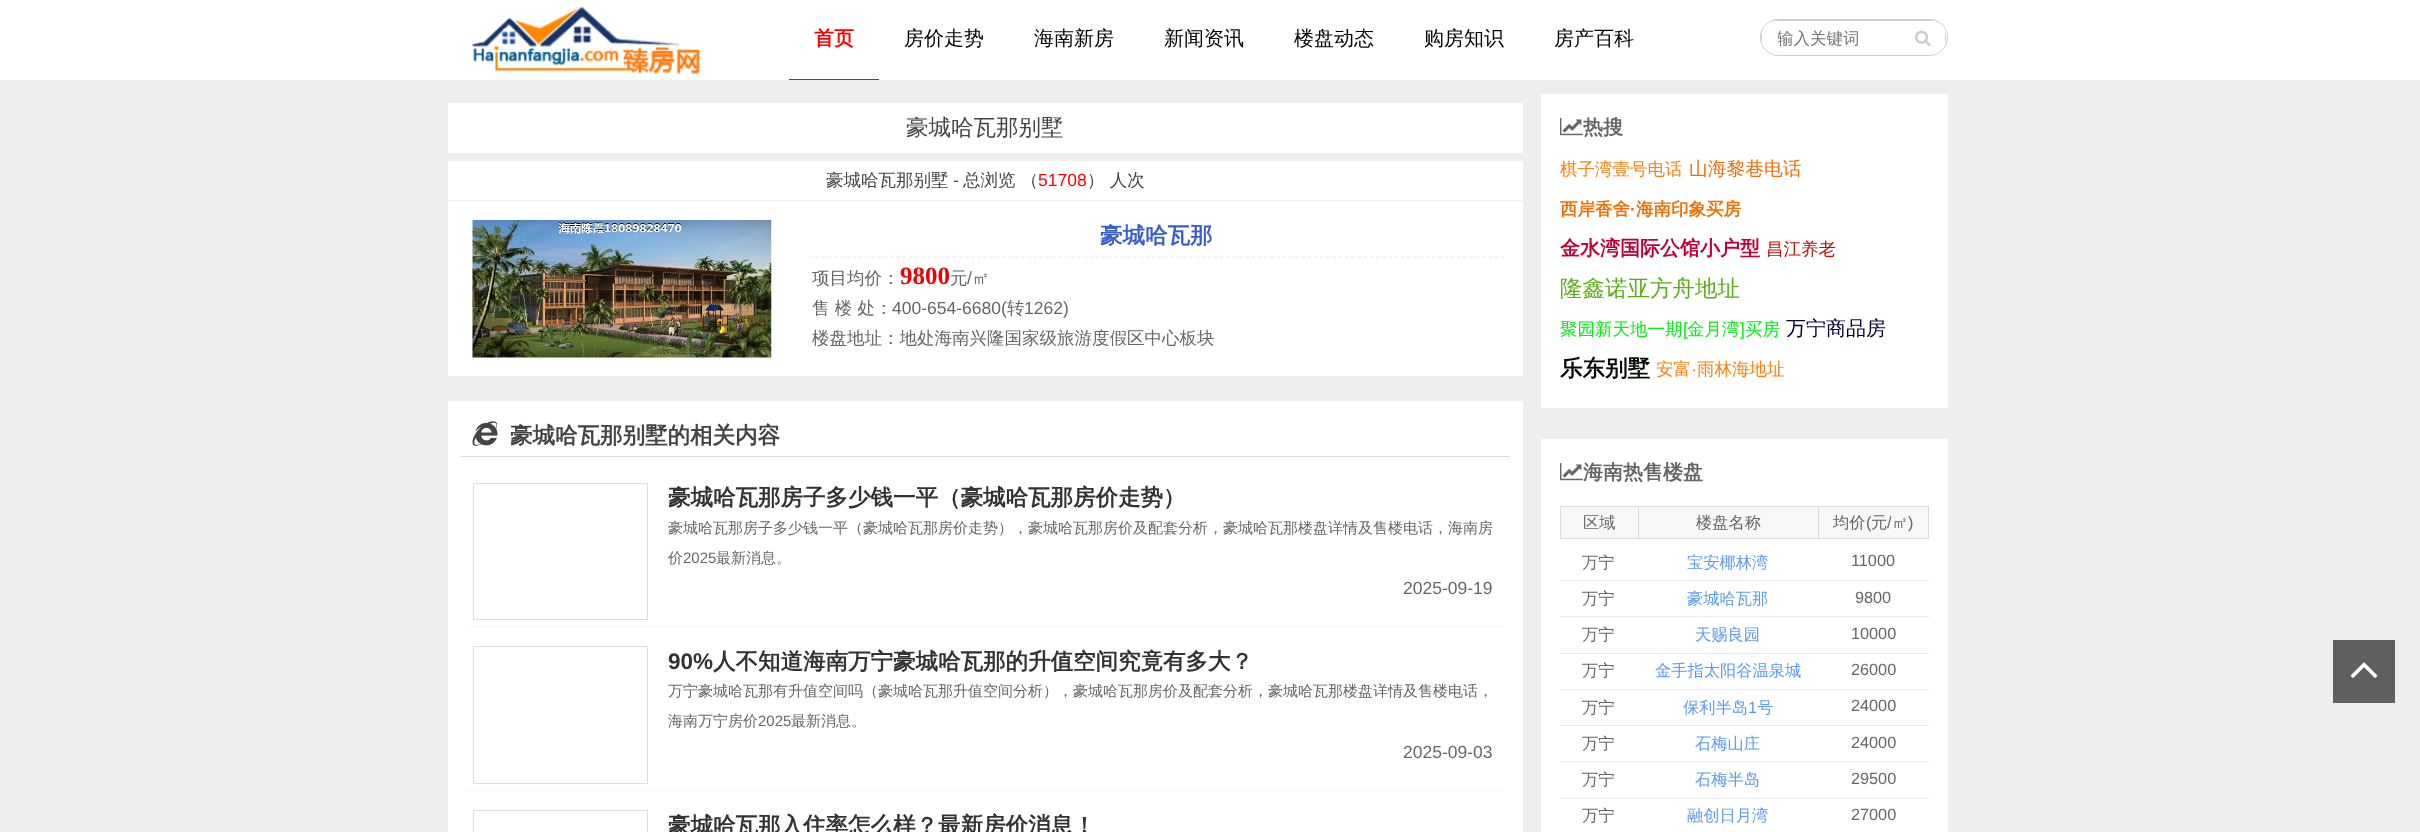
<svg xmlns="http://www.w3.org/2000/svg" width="2420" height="832">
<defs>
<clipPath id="clip1"><rect x="1761" y="20" width="185" height="35" rx="17.5"/></clipPath>
<clipPath id="clip2"><rect x="1778" y="29" width="122" height="22"/></clipPath>
</defs>
<rect width="100%" height="100%" fill="#eee"/>
<rect width="2420" height="80" fill="#fff"/>
<rect y="80" width="2420" height="1" fill="#eaeaea"/>
<image x="472" y="6" width="228" height="69" href="media/1.png"/>
<rect x="789" y="79" width="90" height="1" fill="#f00"/>
<text x="814" y="45" style="font-family:WenQuanYi Zen Hei;font-size:20px;font-weight:bold;fill:#f00">首页</text>
<text x="904" y="45" style="font-family:WenQuanYi Zen Hei;font-size:20px;font-weight:500;fill:#000">房价走势</text>
<text x="1034" y="45" style="font-family:WenQuanYi Zen Hei;font-size:20px;font-weight:500;fill:#000">海南新房</text>
<text x="1164" y="45" style="font-family:WenQuanYi Zen Hei;font-size:20px;font-weight:500;fill:#000">新闻资讯</text>
<text x="1294" y="45" style="font-family:WenQuanYi Zen Hei;font-size:20px;font-weight:500;fill:#000">楼盘动态</text>
<text x="1424" y="45" style="font-family:WenQuanYi Zen Hei;font-size:20px;font-weight:500;fill:#000">购房知识</text>
<text x="1554" y="45" style="font-family:WenQuanYi Zen Hei;font-size:20px;font-weight:500;fill:#000">房产百科</text>
<rect x="1760.5" y="19.5" width="187" height="36" rx="18" fill="none" stroke="#ccc"/>
<path d="M1778.5 20h121.5v35h-121.5c-9.5 0-17.5-8-17.5-17.5c0-9.5 8-17.5 17.5-17.5z" fill="#fff"/>
<g clip-path="url(#clip1)">
<rect x="1773" y="20" width="127" height="1" fill="#ccc"/>
<rect x="1761" y="32" width="1" height="11" fill="#ccc"/>
</g>
<g clip-path="url(#clip2)">
<text x="1777" y="44" style="font-family:WenQuanYi Zen Hei;font-size:16.5px;font-weight:500;fill:#757575">输入关键词</text>
</g>
<path d="M1900 20h28.5c9.5 0 17.5 8 17.5 17.5c0 9.5-8 17.5-17.5 17.5h-28.5z" fill="#fff"/>
<g clip-path="url(#clip1)">
<rect x="1900" y="20" width="34" height="1" fill="#ccc"/>
<rect x="1945" y="32" width="1" height="11" fill="#ccc"/>
</g>
<image x="1915" y="30" width="16" height="16" href="media/2.png"/>
<rect x="448" y="103" width="1075" height="50" fill="#fff"/>
<text x="906" y="135" style="font-family:WenQuanYi Zen Hei;font-size:22.5px;font-weight:500;fill:#444">豪城哈瓦那别墅</text>
<rect x="448" y="161" width="1075" height="39" fill="#fff"/>
<text x="826" y="186" style="font-family:WenQuanYi Zen Hei;font-size:17.5px;font-weight:500;fill:#444">豪城哈瓦那别墅</text>
<text x="953" y="186" style="font-family:Liberation Sans;font-size:17.5px;fill:#444">-</text>
<text x="963" y="186" style="font-family:WenQuanYi Zen Hei;font-size:17.5px;font-weight:500;fill:#444">总浏览 （</text>
<text x="1038" y="186" style="font-family:Liberation Sans;font-size:17.5px;fill:#f00">51708</text>
<text x="1087" y="186" style="font-family:WenQuanYi Zen Hei;font-size:17.5px;font-weight:500;fill:#444">） 人次</text>
<rect x="448" y="201" width="1075" height="175" fill="#fff"/>
<image x="472" y="220" width="300" height="138" href="media/3.png"/>
<path d="M809 257h695" fill="none" stroke="#e7e7e7" stroke-width="1.2" stroke-dasharray="3.75 2.48"/>
<text x="1100" y="243" style="font-family:WenQuanYi Zen Hei;font-size:22.5px;font-weight:bold;fill:#3a5fcd">豪城哈瓦那</text>
<text x="812" y="284" style="font-family:WenQuanYi Zen Hei;font-size:17.5px;font-weight:500;fill:#666">项目均价：</text>
<text x="900" y="284" style="font-family:Liberation Serif;font-size:25px;font-weight:bold;fill:#e00">9800</text>
<text x="950" y="284" style="font-family:WenQuanYi Zen Hei;font-size:17.5px;font-weight:500;fill:#666">元</text>
<text x="967" y="284" style="font-family:Liberation Sans;font-size:17.5px;fill:#666">/</text>
<text x="972" y="284" style="font-family:WenQuanYi Zen Hei;font-size:17.5px;font-weight:500;fill:#666">㎡</text>
<text x="812" y="314" style="font-family:WenQuanYi Zen Hei;font-size:17.5px;font-weight:500;fill:#666">售 楼 处：</text>
<text x="892" y="314" style="font-family:Liberation Sans;font-size:17.5px;fill:#666">400-654-6680(</text>
<text x="1007" y="314" style="font-family:WenQuanYi Zen Hei;font-size:17.5px;font-weight:500;fill:#666">转</text>
<text x="1024" y="314" style="font-family:Liberation Sans;font-size:17.5px;fill:#666">1262)</text>
<text x="812" y="344" style="font-family:WenQuanYi Zen Hei;font-size:17.5px;font-weight:500;fill:#666">楼盘地址：地处海南兴隆国家级旅游度假区中心板块</text>
<rect x="448" y="401" width="1075" height="431" fill="#fff"/>
<rect x="460" y="456" width="1050" height="1" fill="#ddd"/>
<image x="472" y="421" width="26" height="25" href="media/4.png"/>
<text x="510" y="443" style="font-family:WenQuanYi Zen Hei;font-size:22.5px;font-weight:bold;fill:#444">豪城哈瓦那别墅的相关内容</text>
<rect x="466" y="626" width="1038" height="1" fill="#f7f7f7"/>
<rect x="473.5" y="483.5" width="174" height="136" fill="none" stroke="#ddd"/>
<text x="668" y="505" style="font-family:WenQuanYi Zen Hei;font-size:22.5px;font-weight:bold;fill:#333">豪城哈瓦那房子多少钱一平（豪城哈瓦那房价走势）</text>
<text x="668" y="533" style="font-family:WenQuanYi Zen Hei;font-size:15px;font-weight:500;fill:#666">豪城哈瓦那房子多少钱一平（豪城哈瓦那房价走势），豪城哈瓦那房价及配套分析，豪城哈瓦那楼盘详情及售楼电话，海南房</text>
<text x="668" y="563" style="font-family:WenQuanYi Zen Hei;font-size:15px;font-weight:500;fill:#666">价</text>
<text x="683" y="563" style="font-family:Liberation Sans;font-size:15px;fill:#666">2025</text>
<text x="716" y="563" style="font-family:WenQuanYi Zen Hei;font-size:15px;font-weight:500;fill:#666">最新消息。</text>
<text x="1403" y="594" style="font-family:Liberation Sans;font-size:17.5px;fill:#666">2025-09-19</text>
<rect x="466" y="790" width="1038" height="1" fill="#f7f7f7"/>
<rect x="473.5" y="646.5" width="174" height="137" fill="none" stroke="#ddd"/>
<text x="668" y="669" style="font-family:Liberation Sans;font-size:22.5px;font-weight:bold;fill:#333">90%</text>
<text x="713" y="669" style="font-family:WenQuanYi Zen Hei;font-size:22.5px;font-weight:bold;fill:#333">人不知道海南万宁豪城哈瓦那的升值空间究竟有多大？</text>
<text x="668" y="696" style="font-family:WenQuanYi Zen Hei;font-size:15px;font-weight:500;fill:#666">万宁豪城哈瓦那有升值空间吗（豪城哈瓦那升值空间分析），豪城哈瓦那房价及配套分析，豪城哈瓦那楼盘详情及售楼电话，</text>
<text x="668" y="726" style="font-family:WenQuanYi Zen Hei;font-size:15px;font-weight:500;fill:#666">海南万宁房价</text>
<text x="758" y="726" style="font-family:Liberation Sans;font-size:15px;fill:#666">2025</text>
<text x="791" y="726" style="font-family:WenQuanYi Zen Hei;font-size:15px;font-weight:500;fill:#666">最新消息。</text>
<text x="1403" y="758" style="font-family:Liberation Sans;font-size:17.5px;fill:#666">2025-09-03</text>
<rect x="473.5" y="810.5" width="174" height="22" fill="none" stroke="#ddd"/>
<text x="668" y="833" style="font-family:WenQuanYi Zen Hei;font-size:22.5px;font-weight:bold;fill:#333">豪城哈瓦那入住率怎么样？最新房价消息！</text>
<rect x="1541" y="94" width="407" height="314" fill="#fff"/>
<image x="1560" y="118" width="23" height="18" href="media/5.png"/>
<text x="1583" y="134" style="font-family:WenQuanYi Zen Hei;font-size:20px;font-weight:bold;fill:#666">热搜</text>
<text x="1560" y="175" style="font-family:WenQuanYi Zen Hei;font-size:17.5px;font-weight:500;fill:#ff7f10">棋子湾壹号电话</text>
<text x="1689" y="175" style="font-family:WenQuanYi Zen Hei;font-size:18.75px;font-weight:500;fill:#f06f06">山海黎巷电话</text>
<text x="1560" y="215" style="font-family:WenQuanYi Zen Hei;font-size:17.5px;font-weight:bold;fill:#f06f06">西岸香舍</text>
<text x="1630" y="215" style="font-family:Liberation Sans;font-size:17.5px;font-weight:bold;fill:#f06f06">·</text>
<text x="1636" y="215" style="font-family:WenQuanYi Zen Hei;font-size:17.5px;font-weight:bold;fill:#f06f06">海南印象买房</text>
<text x="1560" y="255" style="font-family:WenQuanYi Zen Hei;font-size:20px;font-weight:bold;fill:#c00030">金水湾国际公馆小户型</text>
<text x="1766" y="255" style="font-family:WenQuanYi Zen Hei;font-size:17.5px;font-weight:500;fill:#c00c00">昌江养老</text>
<text x="1560" y="296" style="font-family:WenQuanYi Zen Hei;font-size:22.5px;font-weight:500;fill:#5bae19">隆鑫诺亚方舟地址</text>
<text x="1560" y="335" style="font-family:WenQuanYi Zen Hei;font-size:17.5px;font-weight:500;fill:#00f00f">聚园新天地一期</text>
<text x="1683" y="335" style="font-family:Liberation Sans;font-size:17.5px;fill:#00f00f">[</text>
<text x="1687" y="335" style="font-family:WenQuanYi Zen Hei;font-size:17.5px;font-weight:500;fill:#00f00f">金月湾</text>
<text x="1740" y="335" style="font-family:Liberation Sans;font-size:17.5px;fill:#00f00f">]</text>
<text x="1745" y="335" style="font-family:WenQuanYi Zen Hei;font-size:17.5px;font-weight:500;fill:#00f00f">买房</text>
<text x="1786" y="335" style="font-family:WenQuanYi Zen Hei;font-size:20px;font-weight:500;fill:#030030">万宁商品房</text>
<text x="1560" y="376" style="font-family:WenQuanYi Zen Hei;font-size:22.5px;font-weight:bold;fill:#030c00">乐东别墅</text>
<text x="1656" y="375" style="font-family:WenQuanYi Zen Hei;font-size:17.5px;font-weight:500;fill:#ff7f10">安富</text>
<text x="1691" y="375" style="font-family:Liberation Sans;font-size:17.5px;fill:#ff7f10">·</text>
<text x="1697" y="375" style="font-family:WenQuanYi Zen Hei;font-size:17.5px;font-weight:500;fill:#ff7f10">雨林海地址</text>
<rect x="1541" y="439" width="407" height="393" fill="#fff"/>
<image x="1560" y="463" width="23" height="18" href="media/5.png"/>
<text x="1583" y="479" style="font-family:WenQuanYi Zen Hei;font-size:20px;font-weight:bold;fill:#666">海南热售楼盘</text>
<rect x="1561" y="507" width="77" height="31" fill="#f7f7f7"/>
<rect x="1560" y="506" width="258" height="1" fill="#dadada"/>
<rect x="1560" y="538" width="258" height="1" fill="#dadada"/>
<rect x="1560" y="506" width="1" height="33" fill="#dadada"/>
<text x="1583" y="528" style="font-family:WenQuanYi Zen Hei;font-size:16.25px;font-weight:500;fill:#666">区域</text>
<rect x="1639" y="507" width="179" height="31" fill="#f7f7f7"/>
<rect x="1638" y="506" width="1" height="33" fill="#dadada"/>
<text x="1696" y="528" style="font-family:WenQuanYi Zen Hei;font-size:16.25px;font-weight:500;fill:#666">楼盘名称</text>
<rect x="1818.5" y="506.5" width="110" height="32" fill="#f7f7f7" stroke="#dadada"/>
<text x="1833" y="528" style="font-family:WenQuanYi Zen Hei;font-size:16.25px;font-weight:500;fill:#666">均价</text>
<text x="1866" y="528" style="font-family:Liberation Sans;font-size:16.25px;fill:#666">(</text>
<text x="1871" y="528" style="font-family:WenQuanYi Zen Hei;font-size:16.25px;font-weight:500;fill:#666">元</text>
<text x="1887" y="528" style="font-family:Liberation Sans;font-size:16.25px;fill:#666">/</text>
<text x="1892" y="528" style="font-family:WenQuanYi Zen Hei;font-size:16.25px;font-weight:500;fill:#666">㎡</text>
<text x="1908" y="528" style="font-family:Liberation Sans;font-size:16.25px;fill:#666">)</text>
<rect x="1560" y="580" width="369" height="1" fill="#ebebeb"/>
<text x="1582" y="568" style="font-family:WenQuanYi Zen Hei;font-size:16.25px;font-weight:500;fill:#666">万宁</text>
<text x="1687" y="568" style="font-family:WenQuanYi Zen Hei;font-size:16.25px;font-weight:500;fill:#5a9af4">宝安椰林湾</text>
<text x="1851" y="566" style="font-family:Liberation Sans;font-size:16.25px;fill:#666">11000</text>
<rect x="1560" y="616" width="369" height="1" fill="#ebebeb"/>
<text x="1582" y="604" style="font-family:WenQuanYi Zen Hei;font-size:16.25px;font-weight:500;fill:#666">万宁</text>
<text x="1687" y="604" style="font-family:WenQuanYi Zen Hei;font-size:16.25px;font-weight:500;fill:#5a9af4">豪城哈瓦那</text>
<text x="1855" y="603" style="font-family:Liberation Sans;font-size:16.25px;fill:#666">9800</text>
<rect x="1560" y="653" width="369" height="1" fill="#ebebeb"/>
<text x="1582" y="640" style="font-family:WenQuanYi Zen Hei;font-size:16.25px;font-weight:500;fill:#666">万宁</text>
<text x="1695" y="640" style="font-family:WenQuanYi Zen Hei;font-size:16.25px;font-weight:500;fill:#5a9af4">天赐良园</text>
<text x="1851" y="639" style="font-family:Liberation Sans;font-size:16.25px;fill:#666">10000</text>
<rect x="1560" y="689" width="369" height="1" fill="#ebebeb"/>
<text x="1582" y="676" style="font-family:WenQuanYi Zen Hei;font-size:16.25px;font-weight:500;fill:#666">万宁</text>
<text x="1655" y="676" style="font-family:WenQuanYi Zen Hei;font-size:16.25px;font-weight:500;fill:#5a9af4">金手指太阳谷温泉城</text>
<text x="1851" y="675" style="font-family:Liberation Sans;font-size:16.25px;fill:#666">26000</text>
<rect x="1560" y="725" width="369" height="1" fill="#ebebeb"/>
<text x="1582" y="713" style="font-family:WenQuanYi Zen Hei;font-size:16.25px;font-weight:500;fill:#666">万宁</text>
<text x="1683" y="713" style="font-family:WenQuanYi Zen Hei;font-size:16.25px;font-weight:500;fill:#5a9af4">保利半岛</text>
<text x="1748" y="713" style="font-family:Liberation Sans;font-size:16.25px;fill:#5a9af4">1</text>
<text x="1757" y="713" style="font-family:WenQuanYi Zen Hei;font-size:16.25px;font-weight:500;fill:#5a9af4">号</text>
<text x="1851" y="711" style="font-family:Liberation Sans;font-size:16.25px;fill:#666">24000</text>
<rect x="1560" y="761" width="369" height="1" fill="#ebebeb"/>
<text x="1582" y="749" style="font-family:WenQuanYi Zen Hei;font-size:16.25px;font-weight:500;fill:#666">万宁</text>
<text x="1695" y="749" style="font-family:WenQuanYi Zen Hei;font-size:16.25px;font-weight:500;fill:#5a9af4">石梅山庄</text>
<text x="1851" y="748" style="font-family:Liberation Sans;font-size:16.25px;fill:#666">24000</text>
<rect x="1560" y="798" width="369" height="1" fill="#ebebeb"/>
<text x="1582" y="785" style="font-family:WenQuanYi Zen Hei;font-size:16.25px;font-weight:500;fill:#666">万宁</text>
<text x="1695" y="785" style="font-family:WenQuanYi Zen Hei;font-size:16.25px;font-weight:500;fill:#5a9af4">石梅半岛</text>
<text x="1851" y="784" style="font-family:Liberation Sans;font-size:16.25px;fill:#666">29500</text>
<text x="1582" y="821" style="font-family:WenQuanYi Zen Hei;font-size:16.25px;font-weight:500;fill:#666">万宁</text>
<text x="1687" y="821" style="font-family:WenQuanYi Zen Hei;font-size:16.25px;font-weight:500;fill:#5a9af4">融创日月湾</text>
<text x="1851" y="820" style="font-family:Liberation Sans;font-size:16.25px;fill:#666">27000</text>
<rect x="2333" y="640" width="62" height="63" fill="#5f5f5f"/>
<image x="2350" y="662" width="28" height="16" href="media/6.png"/>
</svg>
